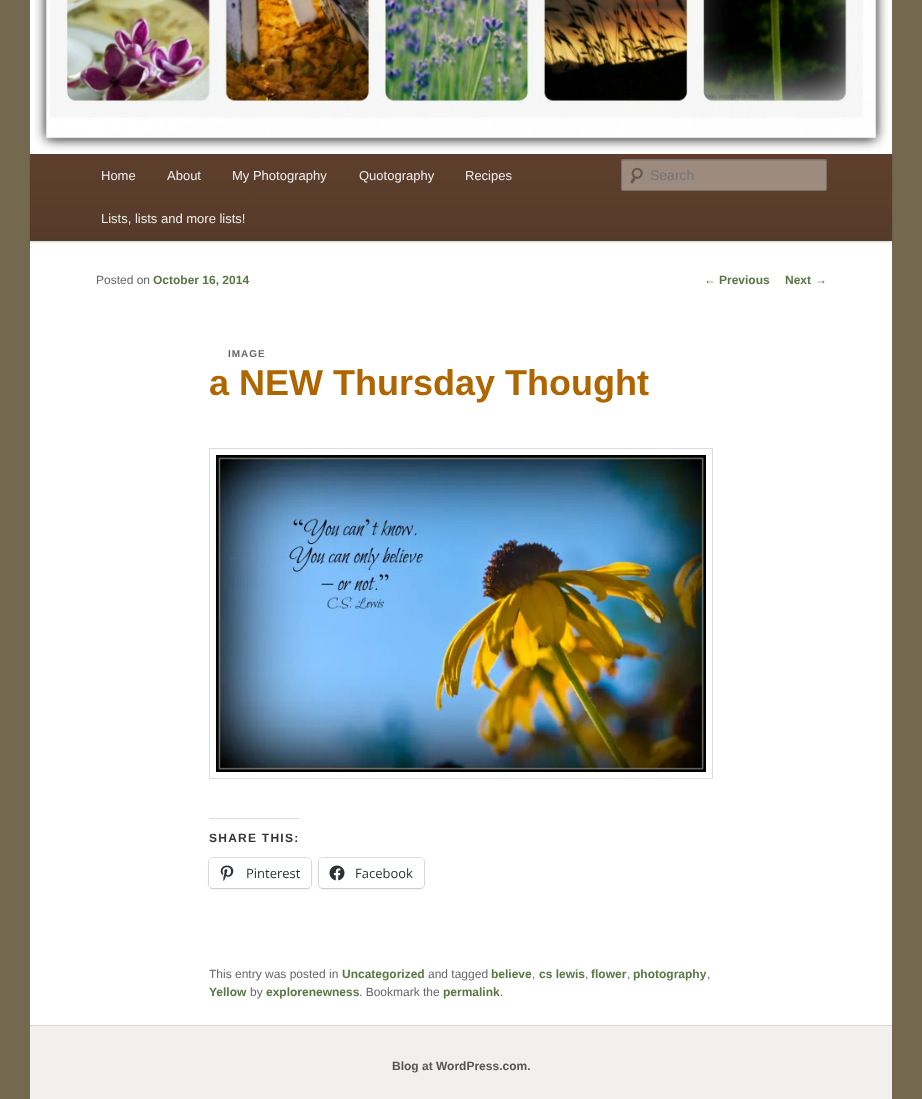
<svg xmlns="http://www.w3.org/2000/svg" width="922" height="1099">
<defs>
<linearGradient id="g1" gradientUnits="userSpaceOnUse" x1="461" y1="154" x2="461" y2="241"><stop offset="0" stop-color="#5e3f2d"/><stop offset="1" stop-color="#563a29"/></linearGradient>
</defs>
<rect width="100%" height="100%" fill="#746850"/>
<rect x="30" width="862" height="1025" fill="#fff"/>
<image x="34" y="0" width="854" height="151" href="media/1.png"/>
<rect x="30" y="155" width="862" height="87" fill="#00000033" filter="blur(1px)"/>
<rect x="30" y="154" width="862" height="87" fill="url(#g1)"/>
<text x="101" y="180" style="font-family:Liberation Sans;font-size:13px;fill:#eee">Home</text>
<text x="167" y="180" style="font-family:Liberation Sans;font-size:13px;fill:#eee">About</text>
<text x="232" y="180" style="font-family:Liberation Sans;font-size:13px;fill:#eee">My Photography</text>
<text x="359" y="180" style="font-family:Liberation Sans;font-size:13px;fill:#eee">Quotography</text>
<text x="465" y="180" style="font-family:Liberation Sans;font-size:13px;fill:#eee">Recipes</text>
<text x="101" y="223" style="font-family:Liberation Sans;font-size:13px;fill:#eee">Lists, lists and more lists!</text>
<rect x="621" y="159" width="206" height="32" rx="2" fill="#9d8b80"/>
<image x="630" y="167" width="13" height="17" href="media/2.png"/>
<path d="M623 161h203v1v-2h-1h-202c-1 0-1 1-1 2c0-1 0-1 1-1z" fill="#8d7d73"/>
<rect x="621.5" y="159.5" width="205" height="31" rx="1.5" fill="none" stroke="#00000033"/>
<text x="650" y="180" style="font-family:Liberation Sans;font-size:14px;fill:#757575">Search</text>
<text x="96" y="284" style="font-family:Liberation Sans;font-size:12px;fill:#666">Posted on</text>
<text x="153" y="284" style="font-family:Liberation Sans;font-size:12px;font-weight:bold;fill:#597744">October 16, 2014</text>
<text x="228" y="357" style="font-family:Liberation Sans;font-size:10px;font-weight:bold;letter-spacing:1px;fill:#666">IMAGE</text>
<text x="209" y="395" style="font-family:Liberation Sans;font-size:36px;font-weight:bold;fill:#af6500">a NEW Thursday Thought</text>
<rect x="209.5" y="448.5" width="503" height="330" fill="none" stroke="#ddd"/>
<image x="216" y="455" width="490" height="317" href="media/3.png"/>
<rect x="209" y="818" width="90" height="1" fill="#dcdcde"/>
<text x="209" y="842" style="font-family:Liberation Sans;font-size:12px;font-weight:bold;letter-spacing:1.25px;fill:#373737">SHARE THIS:</text>
<rect x="208.5" y="857.5" width="103" height="31" rx="4.5" fill="none" stroke="#e0e0e0"/>
<rect x="209" y="859" width="102" height="30" rx="4" fill="#0000001f" filter="blur(1px)"/>
<rect x="209" y="858" width="102" height="30" rx="4" fill="#fff"/>
<image x="220" y="865" width="14" height="16" href="media/4.png"/>
<text x="246" y="878" style="font-family:Open Sans;font-size:13px;fill:#2c3338">Pinterest</text>
<rect x="318.5" y="857.5" width="106" height="31" rx="4.5" fill="none" stroke="#e0e0e0"/>
<rect x="319" y="859" width="105" height="30" rx="4" fill="#0000001f" filter="blur(1px)"/>
<rect x="319" y="858" width="105" height="30" rx="4" fill="#fff"/>
<image x="329" y="865" width="16" height="16" href="media/5.png"/>
<text x="355" y="878" style="font-family:Open Sans;font-size:13px;fill:#2c3338">Facebook</text>
<text x="209" y="978" style="font-family:Liberation Sans;font-size:12px;fill:#666">This entry was posted in</text>
<text x="342" y="978" style="font-family:Liberation Sans;font-size:12px;font-weight:bold;fill:#597744">Uncategorized</text>
<text x="428" y="978" style="font-family:Liberation Sans;font-size:12px;fill:#666">and tagged</text>
<text x="491" y="978" style="font-family:Liberation Sans;font-size:12px;font-weight:bold;fill:#597744">believe</text>
<text x="532" y="978" style="font-family:Liberation Sans;font-size:12px;fill:#666">,</text>
<text x="539" y="978" style="font-family:Liberation Sans;font-size:12px;font-weight:bold;fill:#597744">cs lewis</text>
<text x="585" y="978" style="font-family:Liberation Sans;font-size:12px;fill:#666">,</text>
<text x="591" y="978" style="font-family:Liberation Sans;font-size:12px;font-weight:bold;fill:#597744">flower</text>
<text x="627" y="978" style="font-family:Liberation Sans;font-size:12px;fill:#666">,</text>
<text x="633" y="978" style="font-family:Liberation Sans;font-size:12px;font-weight:bold;fill:#597744">photography</text>
<text x="707" y="978" style="font-family:Liberation Sans;font-size:12px;fill:#666">,</text>
<text x="209" y="996" style="font-family:Liberation Sans;font-size:12px;font-weight:bold;fill:#597744">Yellow</text>
<text x="250" y="996" style="font-family:Liberation Sans;font-size:12px;fill:#666">by</text>
<text x="266" y="996" style="font-family:Liberation Sans;font-size:12px;font-weight:bold;fill:#597744">explorenewness</text>
<text x="359" y="996" style="font-family:Liberation Sans;font-size:12px;fill:#666">. Bookmark the</text>
<text x="443" y="996" style="font-family:Liberation Sans;font-size:12px;font-weight:bold;fill:#597744">permalink</text>
<text x="500" y="996" style="font-family:Liberation Sans;font-size:12px;fill:#666">.</text>
<text x="704" y="284" style="font-family:Liberation Sans;font-size:12px;fill:#597744">←</text>
<text x="719" y="284" style="font-family:Liberation Sans;font-size:12px;font-weight:bold;fill:#597744">Previous</text>
<text x="785" y="284" style="font-family:Liberation Sans;font-size:12px;font-weight:bold;fill:#597744">Next</text>
<text x="815" y="284" style="font-family:Liberation Sans;font-size:12px;fill:#597744">→</text>
<rect x="30" y="1026" width="862" height="73" fill="#f1f0ee"/>
<rect x="30" y="1025" width="862" height="1" fill="#d9d8d6"/>
<text x="392" y="1070" style="font-family:Liberation Sans;font-size:12px;font-weight:bold;fill:#555">Blog at WordPress.com.</text>
</svg>
